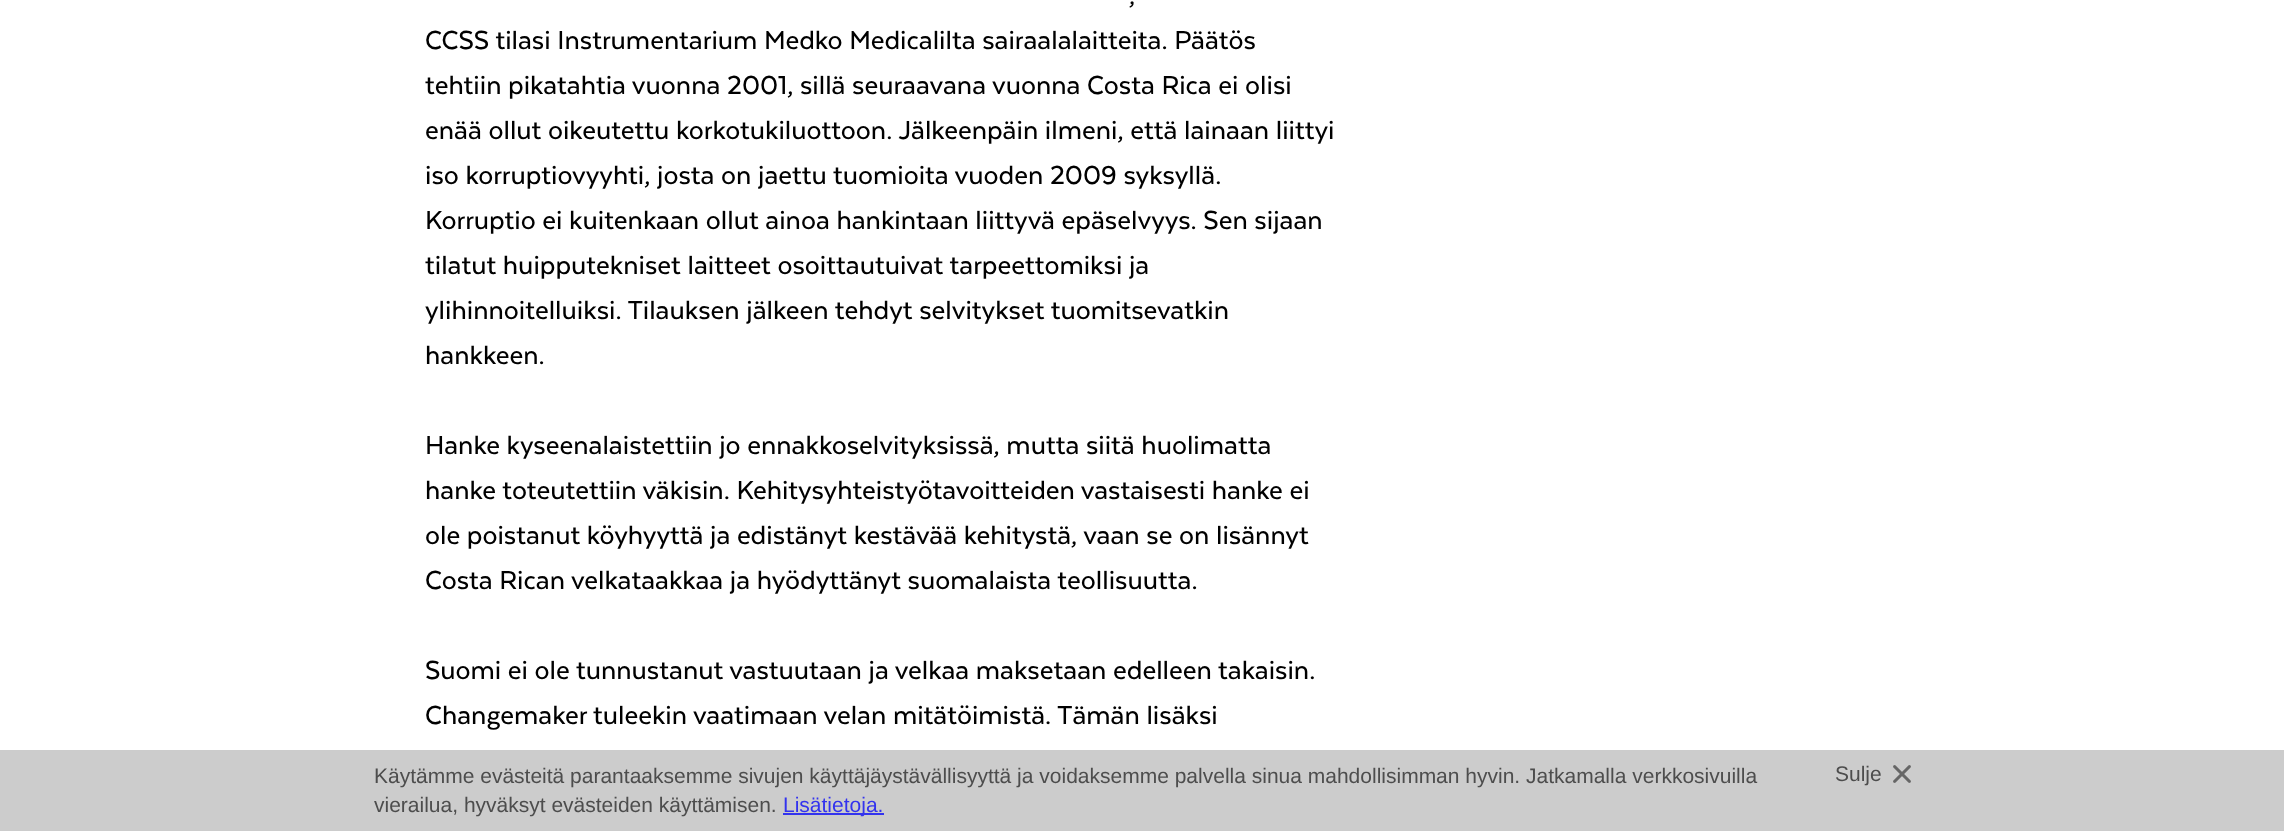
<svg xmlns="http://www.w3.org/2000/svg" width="2284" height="831">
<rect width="100%" height="100%" fill="#fff"/>
<text x="1129" y="4" style="font-family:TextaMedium;font-size:30px;font-weight:500;fill:#000">,</text>
<text x="425" y="49" style="font-family:TextaMedium;font-size:30px;font-weight:500;fill:#000">CCSS tilasi Instrumentarium Medko Medicalilta sairaalalaitteita. Päätös</text>
<text x="425" y="94" style="font-family:TextaMedium;font-size:30px;font-weight:500;fill:#000">tehtiin pikatahtia vuonna 2001, sillä seuraavana vuonna Costa Rica ei olisi</text>
<text x="425" y="139" style="font-family:TextaMedium;font-size:30px;font-weight:500;fill:#000">enää ollut oikeutettu korkotukiluottoon. Jälkeenpäin ilmeni, että lainaan liittyi</text>
<text x="425" y="184" style="font-family:TextaMedium;font-size:30px;font-weight:500;fill:#000">iso korruptiovyyhti, josta on jaettu tuomioita vuoden 2009 syksyllä.</text>
<text x="425" y="229" style="font-family:TextaMedium;font-size:30px;font-weight:500;fill:#000">Korruptio ei kuitenkaan ollut ainoa hankintaan liittyvä epäselvyys. Sen sijaan</text>
<text x="425" y="274" style="font-family:TextaMedium;font-size:30px;font-weight:500;fill:#000">tilatut huipputekniset laitteet osoittautuivat tarpeettomiksi ja</text>
<text x="425" y="319" style="font-family:TextaMedium;font-size:30px;font-weight:500;fill:#000">ylihinnoitelluiksi. Tilauksen jälkeen tehdyt selvitykset tuomitsevatkin</text>
<text x="425" y="364" style="font-family:TextaMedium;font-size:30px;font-weight:500;fill:#000">hankkeen.</text>
<text x="425" y="454" style="font-family:TextaMedium;font-size:30px;font-weight:500;fill:#000">Hanke kyseenalaistettiin jo ennakkoselvityksissä, mutta siitä huolimatta</text>
<text x="425" y="499" style="font-family:TextaMedium;font-size:30px;font-weight:500;fill:#000">hanke toteutettiin väkisin. Kehitysyhteistyötavoitteiden vastaisesti hanke ei</text>
<text x="425" y="544" style="font-family:TextaMedium;font-size:30px;font-weight:500;fill:#000">ole poistanut köyhyyttä ja edistänyt kestävää kehitystä, vaan se on lisännyt</text>
<text x="425" y="589" style="font-family:TextaMedium;font-size:30px;font-weight:500;fill:#000">Costa Rican velkataakkaa ja hyödyttänyt suomalaista teollisuutta.</text>
<text x="425" y="679" style="font-family:TextaMedium;font-size:30px;font-weight:500;fill:#000">Suomi ei ole tunnustanut vastuutaan ja velkaa maksetaan edelleen takaisin.</text>
<text x="425" y="724" style="font-family:TextaMedium;font-size:30px;font-weight:500;fill:#000">Changemaker tuleekin vaatimaan velan mitätöimistä. Tämän lisäksi</text>
<rect y="750" width="2284" height="81" fill="#ccc"/>
<text x="374" y="783" style="font-family:Liberation Sans;font-size:21px;fill:#4d4d4d">Käytämme evästeitä parantaaksemme sivujen käyttäjäystävällisyyttä ja voidaksemme palvella sinua mahdollisimman hyvin. Jatkamalla verkkosivuilla</text>
<text x="1835" y="781" style="font-family:Liberation Sans;font-size:21px;fill:#4d4d4d">Sulje</text>
<image x="1893" y="765" width="18" height="18" href="media/1.png"/>
<text x="374" y="812" style="font-family:Liberation Sans;font-size:21px;fill:#4d4d4d">vierailua, hyväksyt evästeiden käyttämisen.</text>
<rect x="783" y="813" width="101" height="2" fill="#33e"/>
<text x="783" y="812" style="font-family:Liberation Sans;font-size:21px;fill:#33e">Lisätietoja.</text>
</svg>
